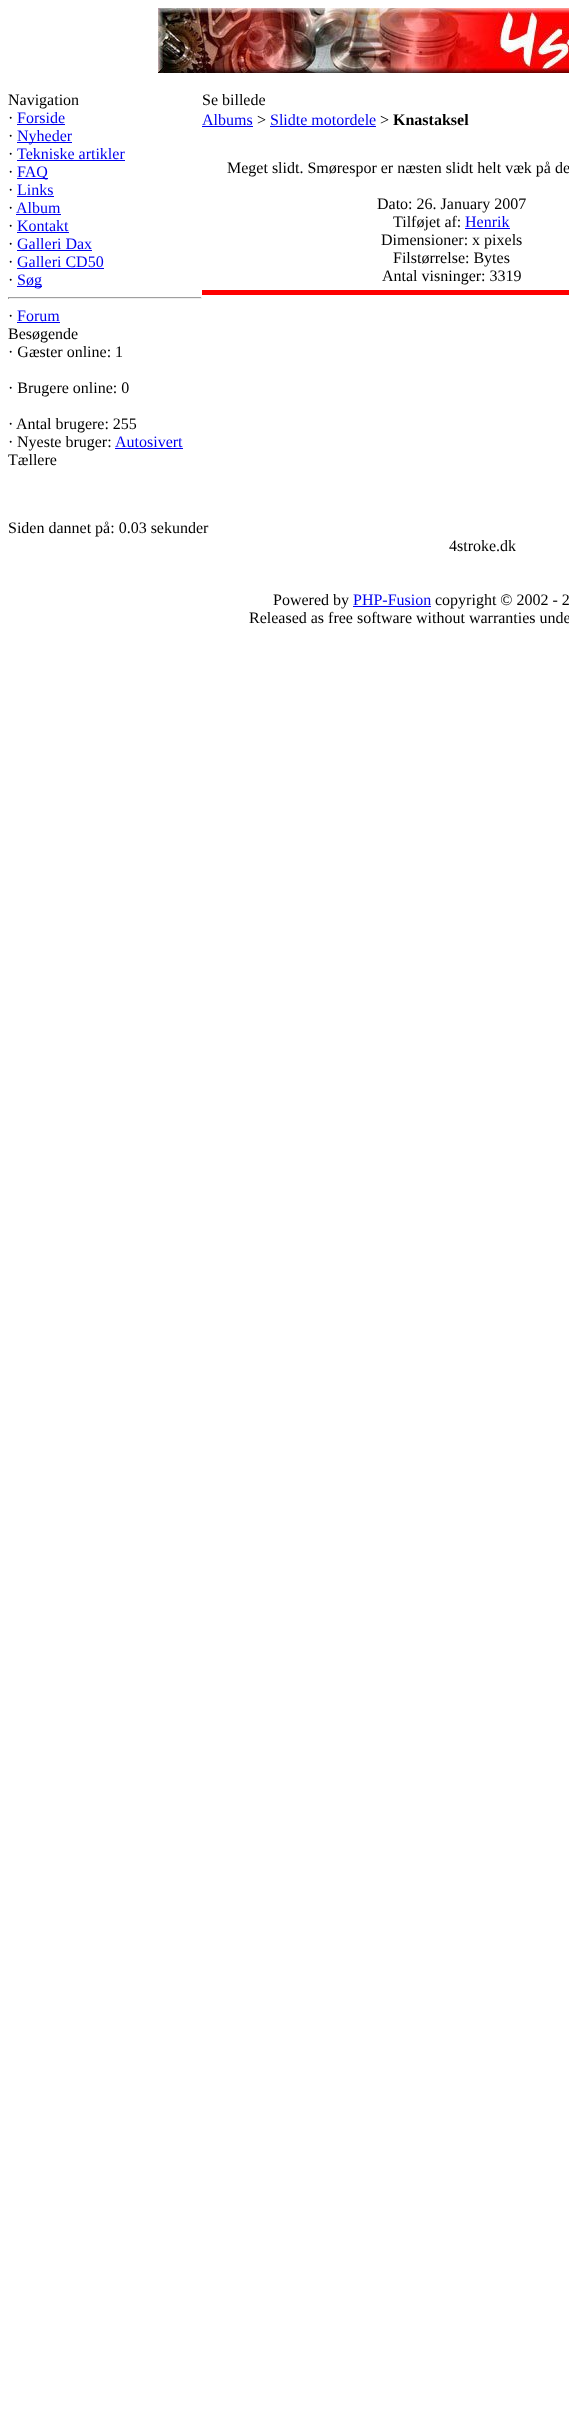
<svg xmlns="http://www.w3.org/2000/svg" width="569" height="2422">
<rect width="100%" height="100%" fill="#fff"/>
<image x="158" y="8" width="411" height="65" href="media/1.png"/>
<text x="8" y="105" style="font-family:Liberation Serif;font-size:16px;fill:#000">Navigation</text>
<text x="8" y="123" style="font-family:Liberation Serif;font-size:16px;fill:#000">·</text>
<text x="17" y="123" style="font-family:Liberation Serif;font-size:16px;fill:#00e">Forside</text>
<rect x="17" y="124" width="48" height="1" fill="#00e"/>
<text x="8" y="141" style="font-family:Liberation Serif;font-size:16px;fill:#000">·</text>
<rect x="17" y="142" width="55" height="1" fill="#00e"/>
<text x="17" y="141" style="font-family:Liberation Serif;font-size:16px;fill:#00e">Nyheder</text>
<text x="8" y="159" style="font-family:Liberation Serif;font-size:16px;fill:#000">·</text>
<text x="17" y="159" style="font-family:Liberation Serif;font-size:16px;fill:#00e">Tekniske artikler</text>
<rect x="17" y="160" width="108" height="1" fill="#00e"/>
<text x="8" y="177" style="font-family:Liberation Serif;font-size:16px;fill:#000">·</text>
<rect x="17" y="178" width="31" height="1" fill="#00e"/>
<text x="17" y="177" style="font-family:Liberation Serif;font-size:16px;fill:#00e">FAQ</text>
<text x="8" y="195" style="font-family:Liberation Serif;font-size:16px;fill:#000">·</text>
<text x="17" y="195" style="font-family:Liberation Serif;font-size:16px;fill:#00e">Links</text>
<rect x="17" y="196" width="37" height="1" fill="#00e"/>
<text x="8" y="213" style="font-family:Liberation Serif;font-size:16px;fill:#000">·</text>
<text x="16" y="213" style="font-family:Liberation Serif;font-size:16px;fill:#00e">Album</text>
<rect x="16" y="214" width="45" height="1" fill="#00e"/>
<text x="8" y="231" style="font-family:Liberation Serif;font-size:16px;fill:#000">·</text>
<text x="17" y="231" style="font-family:Liberation Serif;font-size:16px;fill:#00e">Kontakt</text>
<rect x="17" y="232" width="52" height="1" fill="#00e"/>
<text x="8" y="249" style="font-family:Liberation Serif;font-size:16px;fill:#000">·</text>
<text x="17" y="249" style="font-family:Liberation Serif;font-size:16px;fill:#00e">Galleri Dax</text>
<rect x="17" y="250" width="75" height="1" fill="#00e"/>
<text x="8" y="267" style="font-family:Liberation Serif;font-size:16px;fill:#000">·</text>
<text x="17" y="267" style="font-family:Liberation Serif;font-size:16px;fill:#00e">Galleri CD50</text>
<rect x="17" y="268" width="87" height="1" fill="#00e"/>
<text x="8" y="285" style="font-family:Liberation Serif;font-size:16px;fill:#000">·</text>
<rect x="17" y="286" width="25" height="1" fill="#00e"/>
<text x="17" y="285" style="font-family:Liberation Serif;font-size:16px;fill:#00e">Søg</text>
<rect x="8" y="297" width="194" height="1" fill="#9f9f9f"/>
<rect x="201" y="297" width="1" height="2" fill="#eee"/>
<rect x="8" y="298" width="194" height="1" fill="#eee"/>
<rect x="8" y="297" width="1" height="2" fill="#9f9f9f"/>
<text x="8" y="321" style="font-family:Liberation Serif;font-size:16px;fill:#000">·</text>
<text x="17" y="321" style="font-family:Liberation Serif;font-size:16px;fill:#00e">Forum</text>
<rect x="17" y="322" width="43" height="1" fill="#00e"/>
<text x="8" y="339" style="font-family:Liberation Serif;font-size:16px;fill:#000">Besøgende</text>
<text x="8" y="357" style="font-family:Liberation Serif;font-size:16px;fill:#000">· Gæster online: 1</text>
<text x="8" y="393" style="font-family:Liberation Serif;font-size:16px;fill:#000">· Brugere online: 0</text>
<text x="8" y="429" style="font-family:Liberation Serif;font-size:16px;fill:#000">·</text>
<text x="16" y="429" style="font-family:Liberation Serif;font-size:16px;fill:#000">Antal brugere: 255</text>
<text x="8" y="447" style="font-family:Liberation Serif;font-size:16px;fill:#000">·</text>
<text x="17" y="447" style="font-family:Liberation Serif;font-size:16px;fill:#000">Nyeste bruger:</text>
<text x="115" y="447" style="font-family:Liberation Serif;font-size:16px;fill:#00e">Autosivert</text>
<rect x="115" y="448" width="68" height="1" fill="#00e"/>
<text x="8" y="465" style="font-family:Liberation Serif;font-size:16px;fill:#000">Tællere</text>
<text x="202" y="105" style="font-family:Liberation Serif;font-size:16px;fill:#000">Se billede</text>
<text x="202" y="125" style="font-family:Liberation Serif;font-size:16px;fill:#00e">Albums</text>
<rect x="202" y="126" width="51" height="1" fill="#00e"/>
<text x="257" y="125" style="font-family:Liberation Serif;font-size:16px;fill:#000">&gt;</text>
<text x="270" y="125" style="font-family:Liberation Serif;font-size:16px;fill:#00e">Slidte motordele</text>
<rect x="270" y="126" width="106" height="1" fill="#00e"/>
<text x="380" y="125" style="font-family:Liberation Serif;font-size:16px;fill:#000">&gt;</text>
<text x="393" y="125" style="font-family:Liberation Serif;font-size:16px;font-weight:bold;fill:#000">Knastaksel</text>
<text x="227" y="173" style="font-family:Liberation Serif;font-size:16px;fill:#000">Meget slidt. Smørespor er næsten slidt helt væk på de</text>
<text x="377" y="209" style="font-family:Liberation Serif;font-size:16px;fill:#000">Dato: 26. January 2007</text>
<text x="393" y="227" style="font-family:Liberation Serif;font-size:16px;fill:#000">Tilføjet af:</text>
<text x="465" y="227" style="font-family:Liberation Serif;font-size:16px;fill:#00e">Henrik</text>
<rect x="465" y="228" width="45" height="1" fill="#00e"/>
<text x="381" y="245" style="font-family:Liberation Serif;font-size:16px;fill:#000">Dimensioner: x pixels</text>
<text x="393" y="263" style="font-family:Liberation Serif;font-size:16px;fill:#000">Filstørrelse: Bytes</text>
<text x="382" y="281" style="font-family:Liberation Serif;font-size:16px;fill:#000">Antal visninger: 3319</text>
<rect x="202" y="290" width="367" height="5" fill="#f00"/>
<text x="8" y="533" style="font-family:Liberation Serif;font-size:16px;fill:#000">Siden dannet på: 0.03 sekunder</text>
<text x="449" y="551" style="font-family:Liberation Serif;font-size:16px;fill:#000">4stroke.dk</text>
<text x="273" y="605" style="font-family:Liberation Serif;font-size:16px;fill:#000">Powered by</text>
<text x="353" y="605" style="font-family:Liberation Serif;font-size:16px;fill:#00e">PHP-Fusion</text>
<rect x="353" y="606" width="78" height="1" fill="#00e"/>
<text x="435" y="605" style="font-family:Liberation Serif;font-size:16px;fill:#000">copyright © 2002 - 2</text>
<text x="249" y="623" style="font-family:Liberation Serif;font-size:16px;fill:#000">Released as free software without warranties unde</text>
</svg>
